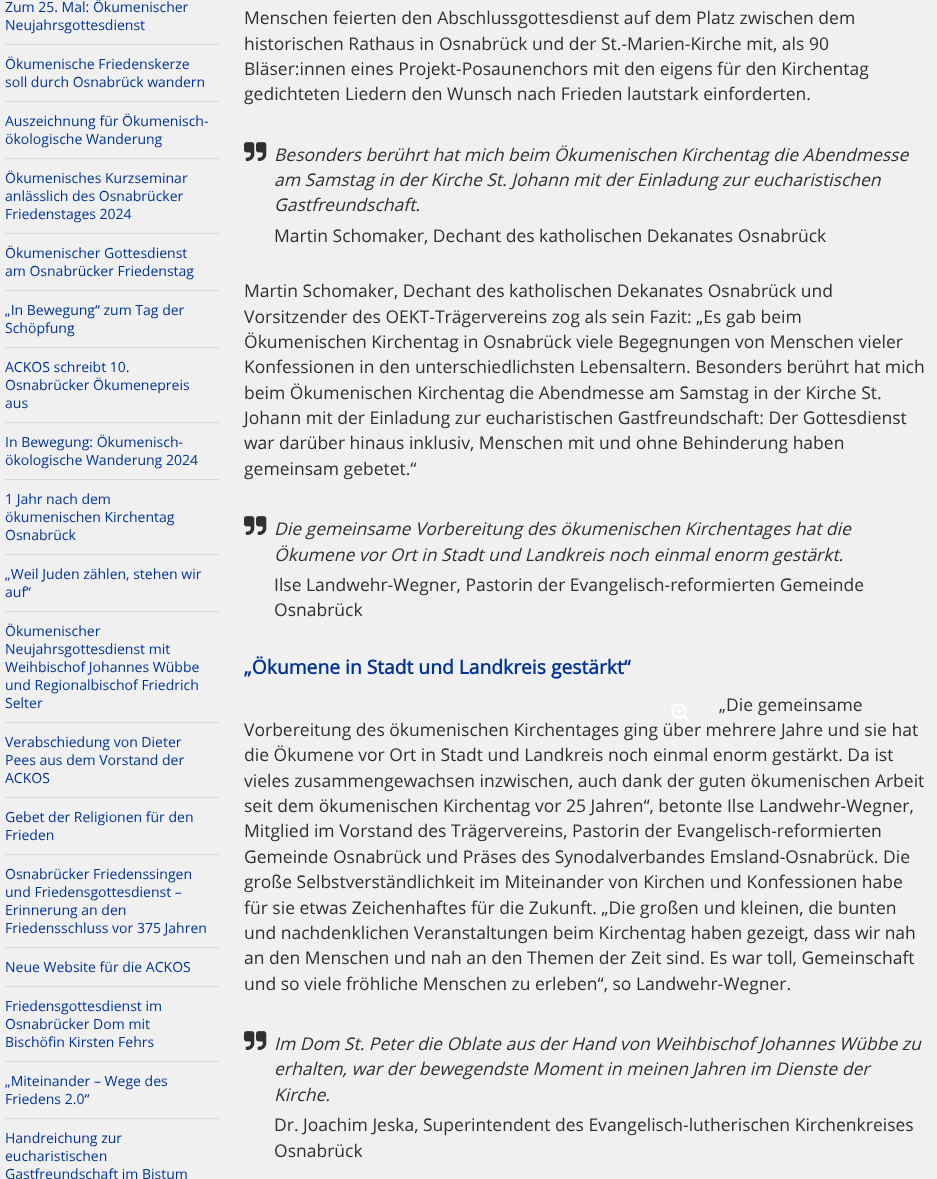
<svg xmlns="http://www.w3.org/2000/svg" width="937" height="1179">
<rect width="100%" height="100%" fill="#f0f0f0"/>
<rect x="5" y="44" width="214" height="1" fill="#d8d8d8"/>
<text x="5" y="12" style="font-family:Open Sans;font-size:14px;fill:#039">Zum 25. Mal: Ökumenischer</text>
<text x="5" y="30" style="font-family:Open Sans;font-size:14px;fill:#039">Neujahrsgottesdienst</text>
<rect x="5" y="101" width="214" height="1" fill="#d8d8d8"/>
<text x="5" y="69" style="font-family:Open Sans;font-size:14px;fill:#039">Ökumenische Friedenskerze</text>
<text x="5" y="87" style="font-family:Open Sans;font-size:14px;fill:#039">soll durch Osnabrück wandern</text>
<rect x="5" y="158" width="214" height="1" fill="#d8d8d8"/>
<text x="5" y="126" style="font-family:Open Sans;font-size:14px;fill:#039">Auszeichnung für Ökumenisch-</text>
<text x="5" y="144" style="font-family:Open Sans;font-size:14px;fill:#039">ökologische Wanderung</text>
<rect x="5" y="233" width="214" height="1" fill="#d8d8d8"/>
<text x="5" y="183" style="font-family:Open Sans;font-size:14px;fill:#039">Ökumenisches Kurzseminar</text>
<text x="5" y="201" style="font-family:Open Sans;font-size:14px;fill:#039">anlässlich des Osnabrücker</text>
<text x="5" y="219" style="font-family:Open Sans;font-size:14px;fill:#039">Friedenstages 2024</text>
<rect x="5" y="290" width="214" height="1" fill="#d8d8d8"/>
<text x="5" y="258" style="font-family:Open Sans;font-size:14px;fill:#039">Ökumenischer Gottesdienst</text>
<text x="5" y="276" style="font-family:Open Sans;font-size:14px;fill:#039">am Osnabrücker Friedenstag</text>
<rect x="5" y="347" width="214" height="1" fill="#d8d8d8"/>
<text x="5" y="315" style="font-family:Open Sans;font-size:14px;fill:#039">„In Bewegung“ zum Tag der</text>
<text x="5" y="333" style="font-family:Open Sans;font-size:14px;fill:#039">Schöpfung</text>
<rect x="5" y="422" width="214" height="1" fill="#d8d8d8"/>
<text x="5" y="372" style="font-family:Open Sans;font-size:14px;fill:#039">ACKOS schreibt 10.</text>
<text x="5" y="390" style="font-family:Open Sans;font-size:14px;fill:#039">Osnabrücker Ökumenepreis</text>
<text x="5" y="408" style="font-family:Open Sans;font-size:14px;fill:#039">aus</text>
<rect x="5" y="479" width="214" height="1" fill="#d8d8d8"/>
<text x="5" y="447" style="font-family:Open Sans;font-size:14px;fill:#039">In Bewegung: Ökumenisch-</text>
<text x="5" y="465" style="font-family:Open Sans;font-size:14px;fill:#039">ökologische Wanderung 2024</text>
<rect x="5" y="554" width="214" height="1" fill="#d8d8d8"/>
<text x="5" y="504" style="font-family:Open Sans;font-size:14px;fill:#039">1 Jahr nach dem</text>
<text x="5" y="522" style="font-family:Open Sans;font-size:14px;fill:#039">ökumenischen Kirchentag</text>
<text x="5" y="540" style="font-family:Open Sans;font-size:14px;fill:#039">Osnabrück</text>
<rect x="5" y="611" width="214" height="1" fill="#d8d8d8"/>
<text x="5" y="579" style="font-family:Open Sans;font-size:14px;fill:#039">„Weil Juden zählen, stehen wir</text>
<text x="5" y="597" style="font-family:Open Sans;font-size:14px;fill:#039">auf“</text>
<rect x="5" y="722" width="214" height="1" fill="#d8d8d8"/>
<text x="5" y="636" style="font-family:Open Sans;font-size:14px;fill:#039">Ökumenischer</text>
<text x="5" y="654" style="font-family:Open Sans;font-size:14px;fill:#039">Neujahrsgottesdienst mit</text>
<text x="5" y="672" style="font-family:Open Sans;font-size:14px;fill:#039">Weihbischof Johannes Wübbe</text>
<text x="5" y="690" style="font-family:Open Sans;font-size:14px;fill:#039">und Regionalbischof Friedrich</text>
<text x="5" y="708" style="font-family:Open Sans;font-size:14px;fill:#039">Selter</text>
<rect x="5" y="797" width="214" height="1" fill="#d8d8d8"/>
<text x="5" y="747" style="font-family:Open Sans;font-size:14px;fill:#039">Verabschiedung von Dieter</text>
<text x="5" y="765" style="font-family:Open Sans;font-size:14px;fill:#039">Pees aus dem Vorstand der</text>
<text x="5" y="783" style="font-family:Open Sans;font-size:14px;fill:#039">ACKOS</text>
<rect x="5" y="854" width="214" height="1" fill="#d8d8d8"/>
<text x="5" y="822" style="font-family:Open Sans;font-size:14px;fill:#039">Gebet der Religionen für den</text>
<text x="5" y="840" style="font-family:Open Sans;font-size:14px;fill:#039">Frieden</text>
<rect x="5" y="947" width="214" height="1" fill="#d8d8d8"/>
<text x="5" y="879" style="font-family:Open Sans;font-size:14px;fill:#039">Osnabrücker Friedenssingen</text>
<text x="5" y="897" style="font-family:Open Sans;font-size:14px;fill:#039">und Friedensgottesdienst –</text>
<text x="5" y="915" style="font-family:Open Sans;font-size:14px;fill:#039">Erinnerung an den</text>
<text x="5" y="933" style="font-family:Open Sans;font-size:14px;fill:#039">Friedensschluss vor 375 Jahren</text>
<rect x="5" y="986" width="214" height="1" fill="#d8d8d8"/>
<text x="5" y="972" style="font-family:Open Sans;font-size:14px;fill:#039">Neue Website für die ACKOS</text>
<rect x="5" y="1061" width="214" height="1" fill="#d8d8d8"/>
<text x="5" y="1011" style="font-family:Open Sans;font-size:14px;fill:#039">Friedensgottesdienst im</text>
<text x="5" y="1029" style="font-family:Open Sans;font-size:14px;fill:#039">Osnabrücker Dom mit</text>
<text x="5" y="1047" style="font-family:Open Sans;font-size:14px;fill:#039">Bischöfin Kirsten Fehrs</text>
<rect x="5" y="1118" width="214" height="1" fill="#d8d8d8"/>
<text x="5" y="1086" style="font-family:Open Sans;font-size:14px;fill:#039">„Miteinander – Wege des</text>
<text x="5" y="1104" style="font-family:Open Sans;font-size:14px;fill:#039">Friedens 2.0“</text>
<text x="5" y="1143" style="font-family:Open Sans;font-size:14px;fill:#039">Handreichung zur</text>
<text x="5" y="1161" style="font-family:Open Sans;font-size:14px;fill:#039">eucharistischen</text>
<text x="5" y="1179" style="font-family:Open Sans;font-size:14px;fill:#039">Gastfreundschaft im Bistum</text>
<text x="244" y="24" style="font-family:Open Sans;font-size:17.5px;fill:#303030">Menschen feierten den Abschlussgottesdienst auf dem Platz zwischen dem</text>
<text x="244" y="50" style="font-family:Open Sans;font-size:17.5px;fill:#303030">historischen Rathaus in Osnabrück und der St.-Marien-Kirche mit, als 90</text>
<text x="244" y="75" style="font-family:Open Sans;font-size:17.5px;fill:#303030">Bläser:innen eines Projekt-Posaunenchors mit den eigens für den Kirchentag</text>
<text x="244" y="100" style="font-family:Open Sans;font-size:17.5px;fill:#303030">gedichteten Liedern den Wunsch nach Frieden lautstark einforderten.</text>
<image x="244" y="142" width="23" height="19" href="media/1.png"/>
<text x="274" y="161" style="font-family:Open Sans;font-size:17.5px;font-style:italic;fill:#303030">Besonders berührt hat mich beim Ökumenischen Kirchentag die Abendmesse</text>
<text x="274" y="186" style="font-family:Open Sans;font-size:17.5px;font-style:italic;fill:#303030">am Samstag in der Kirche St. Johann mit der Einladung zur eucharistischen</text>
<text x="274" y="211" style="font-family:Open Sans;font-size:17.5px;font-style:italic;fill:#303030">Gastfreundschaft.</text>
<text x="274" y="242" style="font-family:Open Sans;font-size:17.5px;fill:#303030">Martin Schomaker, Dechant des katholischen Dekanates Osnabrück</text>
<text x="244" y="297" style="font-family:Open Sans;font-size:17.5px;fill:#303030">Martin Schomaker, Dechant des katholischen Dekanates Osnabrück und</text>
<text x="244" y="323" style="font-family:Open Sans;font-size:17.5px;fill:#303030">Vorsitzender des OEKT-Trägervereins zog als sein Fazit: „Es gab beim</text>
<text x="244" y="348" style="font-family:Open Sans;font-size:17.5px;fill:#303030">Ökumenischen Kirchentag in Osnabrück viele Begegnungen von Menschen vieler</text>
<text x="244" y="373" style="font-family:Open Sans;font-size:17.5px;fill:#303030">Konfessionen in den unterschiedlichsten Lebensaltern. Besonders berührt hat mich</text>
<text x="244" y="399" style="font-family:Open Sans;font-size:17.5px;fill:#303030">beim Ökumenischen Kirchentag die Abendmesse am Samstag in der Kirche St.</text>
<text x="244" y="424" style="font-family:Open Sans;font-size:17.5px;fill:#303030">Johann mit der Einladung zur eucharistischen Gastfreundschaft: Der Gottesdienst</text>
<text x="244" y="449" style="font-family:Open Sans;font-size:17.5px;fill:#303030">war darüber hinaus inklusiv, Menschen mit und ohne Behinderung haben</text>
<text x="244" y="475" style="font-family:Open Sans;font-size:17.5px;fill:#303030">gemeinsam gebetet.“</text>
<image x="244" y="516" width="23" height="19" href="media/1.png"/>
<text x="274" y="535" style="font-family:Open Sans;font-size:17.5px;font-style:italic;fill:#303030">Die gemeinsame Vorbereitung des ökumenischen Kirchentages hat die</text>
<text x="274" y="561" style="font-family:Open Sans;font-size:17.5px;font-style:italic;fill:#303030">Ökumene vor Ort in Stadt und Landkreis noch einmal enorm gestärkt.</text>
<text x="274" y="591" style="font-family:Open Sans;font-size:17.5px;fill:#303030">Ilse Landwehr-Wegner, Pastorin der Evangelisch-reformierten Gemeinde</text>
<text x="274" y="616" style="font-family:Open Sans;font-size:17.5px;fill:#303030">Osnabrück</text>
<text x="244" y="674" style="font-family:Open Sans;font-size:19.25px;font-weight:bold;fill:#039">„Ökumene in Stadt und Landkreis gestärkt“</text>
<text x="719" y="711" style="font-family:Open Sans;font-size:17.5px;fill:#303030">„Die gemeinsame</text>
<text x="244" y="736" style="font-family:Open Sans;font-size:17.5px;fill:#303030">Vorbereitung des ökumenischen Kirchentages ging über mehrere Jahre und sie hat</text>
<text x="244" y="761" style="font-family:Open Sans;font-size:17.5px;fill:#303030">die Ökumene vor Ort in Stadt und Landkreis noch einmal enorm gestärkt. Da ist</text>
<text x="244" y="787" style="font-family:Open Sans;font-size:17.5px;fill:#303030">vieles zusammengewachsen inzwischen, auch dank der guten ökumenischen Arbeit</text>
<text x="244" y="812" style="font-family:Open Sans;font-size:17.5px;fill:#303030">seit dem ökumenischen Kirchentag vor 25 Jahren“, betonte Ilse Landwehr-Wegner,</text>
<text x="244" y="837" style="font-family:Open Sans;font-size:17.5px;fill:#303030">Mitglied im Vorstand des Trägervereins, Pastorin der Evangelisch-reformierten</text>
<text x="244" y="863" style="font-family:Open Sans;font-size:17.5px;fill:#303030">Gemeinde Osnabrück und Präses des Synodalverbandes Emsland-Osnabrück. Die</text>
<text x="244" y="888" style="font-family:Open Sans;font-size:17.5px;fill:#303030">große Selbstverständlichkeit im Miteinander von Kirchen und Konfessionen habe</text>
<text x="244" y="914" style="font-family:Open Sans;font-size:17.5px;fill:#303030">für sie etwas Zeichenhaftes für die Zukunft. „Die großen und kleinen, die bunten</text>
<text x="244" y="939" style="font-family:Open Sans;font-size:17.5px;fill:#303030">und nachdenklichen Veranstaltungen beim Kirchentag haben gezeigt, dass wir nah</text>
<text x="244" y="964" style="font-family:Open Sans;font-size:17.5px;fill:#303030">an den Menschen und nah an den Themen der Zeit sind. Es war toll, Gemeinschaft</text>
<text x="244" y="990" style="font-family:Open Sans;font-size:17.5px;fill:#303030">und so viele fröhliche Menschen zu erleben“, so Landwehr-Wegner.</text>
<image x="671" y="703" width="19" height="19" href="media/2.png"/>
<image x="244" y="1031" width="23" height="19" href="media/1.png"/>
<text x="274" y="1050" style="font-family:Open Sans;font-size:17.5px;font-style:italic;fill:#303030">Im Dom St. Peter die Oblate aus der Hand von Weihbischof Johannes Wübbe zu</text>
<text x="274" y="1075" style="font-family:Open Sans;font-size:17.5px;font-style:italic;fill:#303030">erhalten, war der bewegendste Moment in meinen Jahren im Dienste der</text>
<text x="274" y="1101" style="font-family:Open Sans;font-size:17.5px;font-style:italic;fill:#303030">Kirche.</text>
<text x="274" y="1131" style="font-family:Open Sans;font-size:17.5px;fill:#303030">Dr. Joachim Jeska, Superintendent des Evangelisch-lutherischen Kirchenkreises</text>
<text x="274" y="1157" style="font-family:Open Sans;font-size:17.5px;fill:#303030">Osnabrück</text>
</svg>
